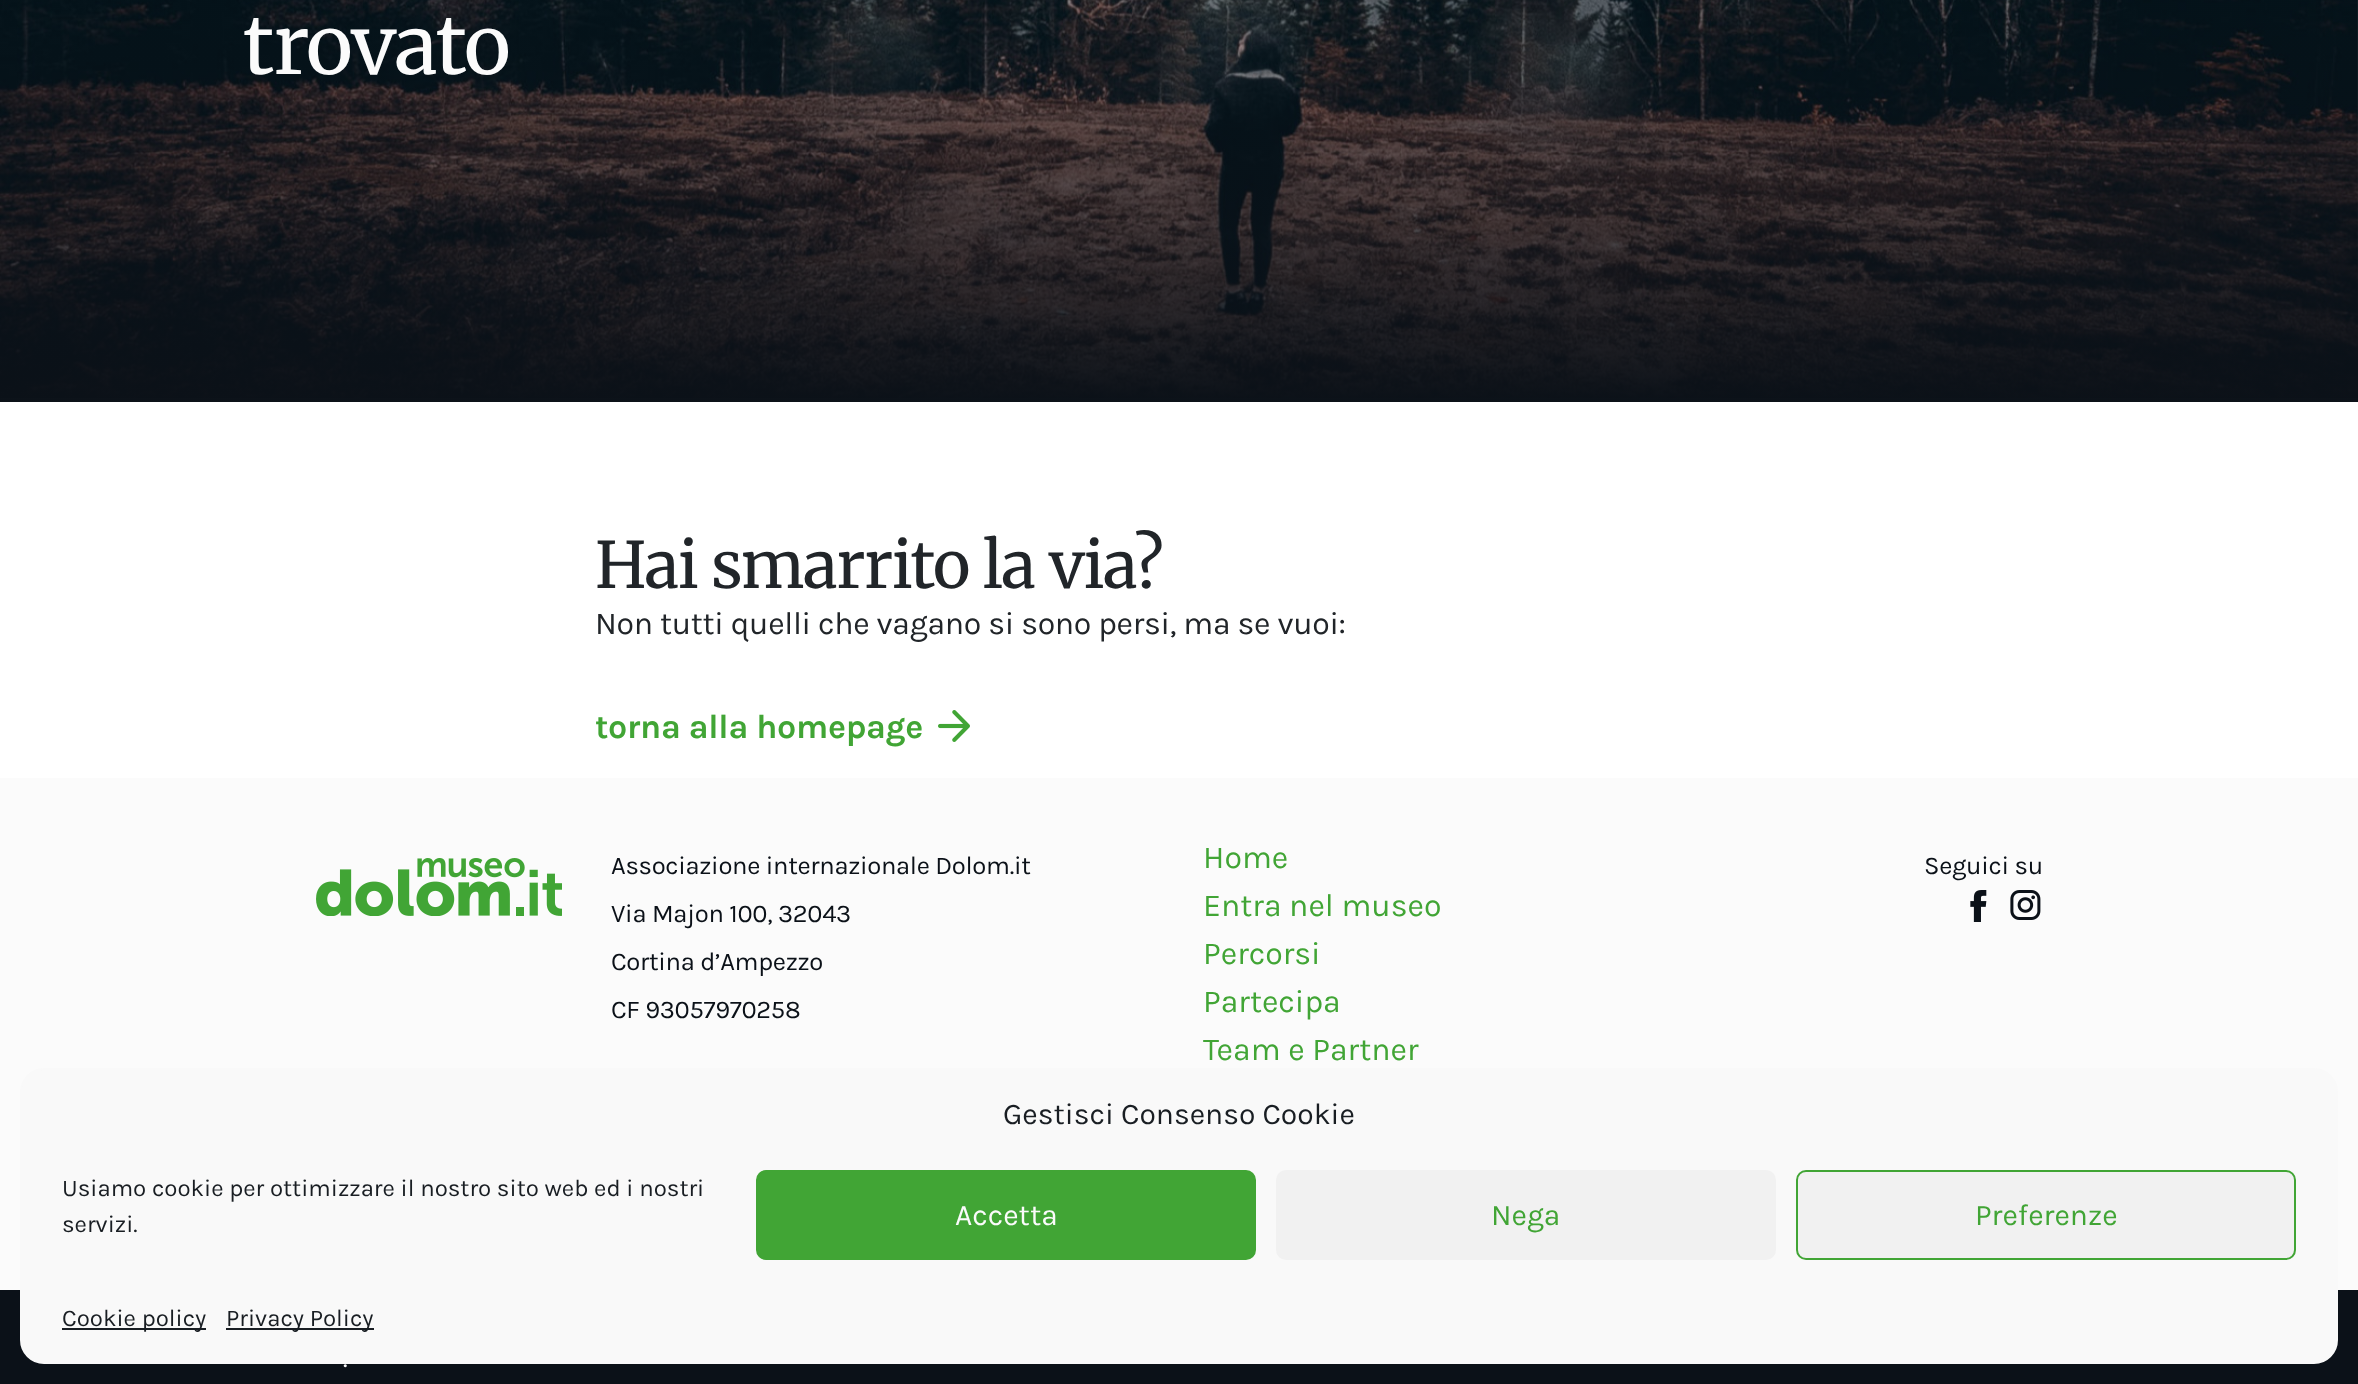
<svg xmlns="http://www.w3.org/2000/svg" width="2358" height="1384">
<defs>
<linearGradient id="g1" gradientUnits="userSpaceOnUse" x1="1179" y1="402" x2="1179" y2="-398"><stop offset="0" stop-color="#0b1118"/><stop offset="0.8" stop-color="#0b1118" stop-opacity="0"/></linearGradient>
</defs>
<rect width="100%" height="100%" fill="#fff"/>
<image x="0" y="0" width="2358" height="398" href="media/1.png"/>
<rect width="2358" height="402" fill="url(#g1)"/>
<text x="243" y="74" style="font-family:Merriweather;font-size:80px;font-weight:300;letter-spacing:-1.25px;fill:#fbfbfb">trovato</text>
<text x="595" y="588" style="font-family:Merriweather;font-size:64px;font-weight:300;letter-spacing:-1.25px;fill:#212529">Hai smarrito la via?</text>
<text x="595" y="634" style="font-family:Karla;font-size:32px;letter-spacing:-0.32px;fill:#212529">Non tutti quelli che vagano si sono persi, ma se vuoi:</text>
<text x="595" y="738" style="font-family:Karla;font-size:34px;font-weight:bold;letter-spacing:-0.32px;fill:#41a535">torna alla homepage</text>
<image x="938" y="710" width="32" height="32" href="media/2.png"/>
<rect y="778" width="2358" height="512" fill="#fbfbfb"/>
<image x="316" y="858" width="246" height="58" href="media/3.png"/>
<text x="611" y="874" style="font-family:Karla;font-size:25.6px;letter-spacing:-0.32px;fill:#0b1118">Associazione internazionale Dolom.it</text>
<text x="611" y="922" style="font-family:Karla;font-size:25.6px;letter-spacing:-0.32px;fill:#0b1118">Via Majon 100, 32043</text>
<text x="611" y="970" style="font-family:Karla;font-size:25.6px;letter-spacing:-0.32px;fill:#0b1118">Cortina d’Ampezzo</text>
<text x="611" y="1018" style="font-family:Karla;font-size:25.6px;letter-spacing:-0.32px;fill:#0b1118">CF 93057970258</text>
<text x="1203" y="868" style="font-family:Karla;font-size:32px;fill:#41a535">Home</text>
<text x="1203" y="916" style="font-family:Karla;font-size:32px;fill:#41a535">Entra nel museo</text>
<text x="1203" y="964" style="font-family:Karla;font-size:32px;fill:#41a535">Percorsi</text>
<text x="1203" y="1012" style="font-family:Karla;font-size:32px;fill:#41a535">Partecipa</text>
<text x="1203" y="1060" style="font-family:Karla;font-size:32px;fill:#41a535">Team e Partner</text>
<text x="1924" y="874" style="font-family:Karla;font-size:25.6px;letter-spacing:-0.32px;fill:#0b1118">Seguici su</text>
<image x="1970" y="890" width="17" height="32" href="media/4.png"/>
<image x="2010" y="890" width="31" height="30" href="media/5.png"/>
<rect y="1290" width="2358" height="94" fill="#0b1118"/>
<text x="343" y="1367" style="font-family:Karla;font-size:25.6px;fill:#fbfbfb">.</text>
<rect x="21" y="1069" width="2316" height="294" rx="23" fill="#f9f9f9" stroke="#f9f9f9" stroke-width="2"/>
<text x="1003" y="1124" style="font-family:Karla;font-size:30px;fill:#191e23">Gestisci Consenso Cookie</text>
<text x="62" y="1196" style="font-family:Karla;font-size:24px;fill:#191e23">Usiamo cookie per ottimizzare il nostro sito web ed i nostri</text>
<text x="62" y="1232" style="font-family:Karla;font-size:24px;fill:#191e23">servizi.</text>
<rect x="757" y="1171" width="498" height="88" rx="9" fill="#41a535" stroke="#41a535" stroke-width="2"/>
<text x="955" y="1225" style="font-family:Karla;font-size:30px;fill:#fbfbfb">Accetta</text>
<rect x="1276" y="1170" width="500" height="90" rx="10" fill="#f1f1f1"/>
<text x="1491" y="1225" style="font-family:Karla;font-size:30px;fill:#41a535">Nega</text>
<rect x="1797" y="1171" width="498" height="88" rx="9" fill="#f1f1f1" stroke="#41a535" stroke-width="2"/>
<text x="1975" y="1225" style="font-family:Karla;font-size:30px;fill:#41a535">Preferenze</text>
<rect x="62" y="1328" width="144" height="2" fill="#191e23"/>
<text x="62" y="1326" style="font-family:Karla;font-size:24px;fill:#191e23">Cookie policy</text>
<rect x="226" y="1328" width="148" height="2" fill="#191e23"/>
<text x="226" y="1326" style="font-family:Karla;font-size:24px;fill:#191e23">Privacy Policy</text>
</svg>
